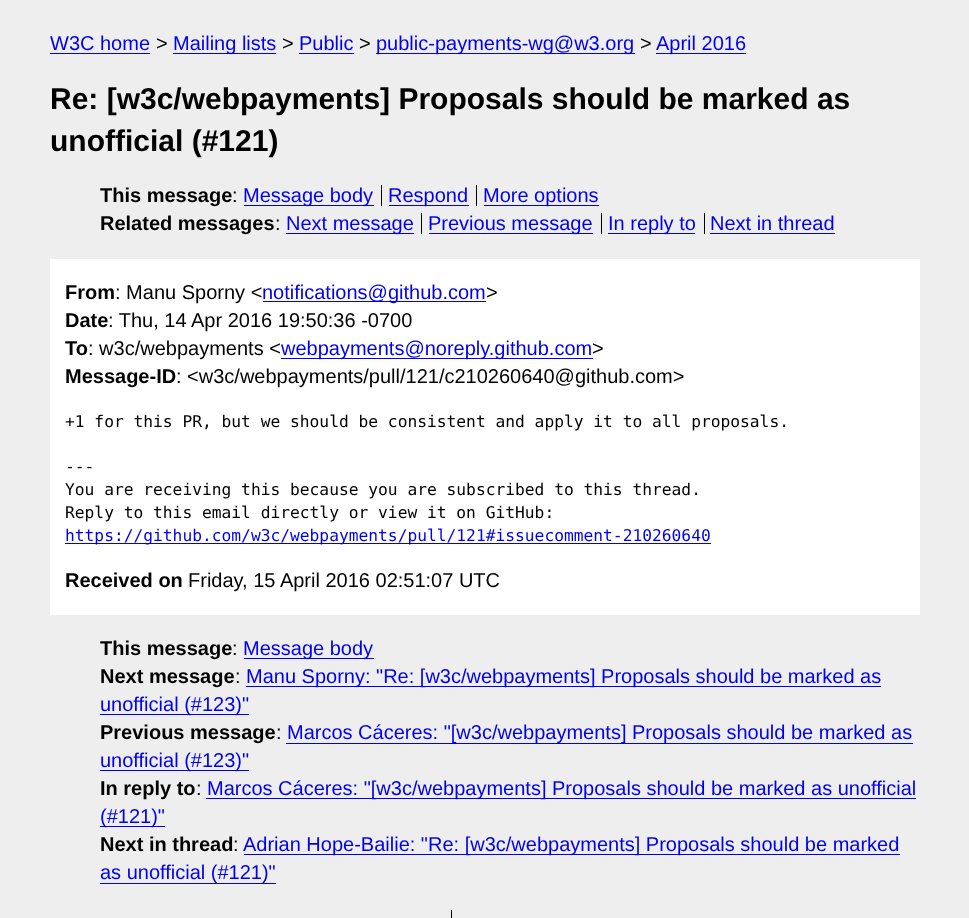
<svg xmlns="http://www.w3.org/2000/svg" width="969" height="918">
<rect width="100%" height="100%" fill="#eee"/>
<text x="50" y="50" style="font-family:Liberation Sans;font-size:20px;fill:#00e">W3C home</text>
<rect x="50" y="53" width="100" height="1" fill="#00e"/>
<text x="156" y="50" style="font-family:Liberation Sans;font-size:20px;fill:#000">&gt;</text>
<rect x="173" y="53" width="103" height="1" fill="#00e"/>
<text x="173" y="50" style="font-family:Liberation Sans;font-size:20px;fill:#00e">Mailing lists</text>
<text x="282" y="50" style="font-family:Liberation Sans;font-size:20px;fill:#000">&gt;</text>
<text x="299" y="50" style="font-family:Liberation Sans;font-size:20px;fill:#00e">Public</text>
<rect x="299" y="53" width="55" height="1" fill="#00e"/>
<text x="359" y="50" style="font-family:Liberation Sans;font-size:20px;fill:#000">&gt;</text>
<rect x="376" y="53" width="259" height="1" fill="#00e"/>
<text x="376" y="50" style="font-family:Liberation Sans;font-size:20px;fill:#00e">public-payments-wg@w3.org</text>
<text x="640" y="50" style="font-family:Liberation Sans;font-size:20px;fill:#000">&gt;</text>
<rect x="656" y="53" width="90" height="1" fill="#00e"/>
<text x="656" y="50" style="font-family:Liberation Sans;font-size:20px;fill:#00e">April 2016</text>
<text x="50" y="109" style="font-family:Liberation Sans;font-size:30px;font-weight:bold;fill:#000">Re: [w3c/webpayments] Proposals should be marked as</text>
<text x="50" y="151" style="font-family:Liberation Sans;font-size:30px;font-weight:bold;fill:#000">unofficial (#121)</text>
<text x="100" y="202" style="font-family:Liberation Sans;font-size:20px;font-weight:bold;fill:#000">This message</text>
<text x="232" y="202" style="font-family:Liberation Sans;font-size:20px;fill:#000">:</text>
<rect x="244" y="205" width="130" height="1" fill="#00e"/>
<text x="243" y="202" style="font-family:Liberation Sans;font-size:20px;fill:#00e">Message body</text>
<rect x="381" y="185" width="1" height="21" fill="#000"/>
<rect x="389" y="205" width="80" height="1" fill="#00e"/>
<text x="388" y="202" style="font-family:Liberation Sans;font-size:20px;fill:#00e">Respond</text>
<rect x="484" y="205" width="115" height="1" fill="#00e"/>
<text x="483" y="202" style="font-family:Liberation Sans;font-size:20px;fill:#00e">More options</text>
<rect x="476" y="185" width="1" height="21" fill="#000"/>
<text x="100" y="230" style="font-family:Liberation Sans;font-size:20px;font-weight:bold;fill:#000">Related messages</text>
<text x="275" y="230" style="font-family:Liberation Sans;font-size:20px;fill:#000">:</text>
<rect x="286" y="233" width="128" height="1" fill="#00e"/>
<text x="286" y="230" style="font-family:Liberation Sans;font-size:20px;fill:#00e">Next message</text>
<rect x="429" y="233" width="164" height="1" fill="#00e"/>
<text x="428" y="230" style="font-family:Liberation Sans;font-size:20px;fill:#00e">Previous message</text>
<rect x="421" y="213" width="1" height="21" fill="#000"/>
<rect x="608" y="233" width="87" height="1" fill="#00e"/>
<text x="608" y="230" style="font-family:Liberation Sans;font-size:20px;fill:#00e">In reply to</text>
<rect x="601" y="213" width="1" height="21" fill="#000"/>
<text x="710" y="230" style="font-family:Liberation Sans;font-size:20px;fill:#00e">Next in thread</text>
<rect x="704" y="213" width="1" height="21" fill="#000"/>
<rect x="710" y="233" width="125" height="1" fill="#00e"/>
<rect x="50" y="259" width="870" height="356" fill="#fff"/>
<text x="65" y="299" style="font-family:Liberation Sans;font-size:20px;font-weight:bold;fill:#000">From</text>
<text x="115" y="299" style="font-family:Liberation Sans;font-size:20px;fill:#000">: Manu Sporny &lt;</text>
<rect x="263" y="301" width="223" height="1" fill="#00e"/>
<text x="262" y="299" style="font-family:Liberation Sans;font-size:20px;fill:#00e">notifications@github.com</text>
<text x="486" y="299" style="font-family:Liberation Sans;font-size:20px;fill:#000">&gt;</text>
<text x="65" y="327" style="font-family:Liberation Sans;font-size:20px;font-weight:bold;fill:#000">Date</text>
<text x="108" y="327" style="font-family:Liberation Sans;font-size:20px;fill:#000">: Thu, 14 Apr 2016 19:50:36 -0700</text>
<text x="65" y="355" style="font-family:Liberation Sans;font-size:20px;font-weight:bold;fill:#000">To</text>
<text x="88" y="355" style="font-family:Liberation Sans;font-size:20px;fill:#000">: w3c/webpayments &lt;</text>
<rect x="281" y="358" width="312" height="1" fill="#00e"/>
<text x="281" y="355" style="font-family:Liberation Sans;font-size:20px;fill:#00e">webpayments@noreply.github.com</text>
<text x="592" y="355" style="font-family:Liberation Sans;font-size:20px;fill:#000">&gt;</text>
<text x="65" y="383" style="font-family:Liberation Sans;font-size:20px;font-weight:bold;fill:#000">Message-ID</text>
<text x="176" y="383" style="font-family:Liberation Sans;font-size:20px;fill:#000">: &lt;w3c/webpayments/pull/121/c210260640@github.com&gt;</text>
<text x="65" y="427" style="font-family:DejaVu Sans Mono;font-size:16.25px;fill:#000">+1 for this PR, but we should be consistent and apply it to all proposals.</text>
<text x="65" y="472" style="font-family:DejaVu Sans Mono;font-size:16.25px;fill:#000">---</text>
<text x="65" y="495" style="font-family:DejaVu Sans Mono;font-size:16.25px;fill:#000">You are receiving this because you are subscribed to this thread.</text>
<text x="65" y="518" style="font-family:DejaVu Sans Mono;font-size:16.25px;fill:#000">Reply to this email directly or view it on GitHub:</text>
<rect x="65" y="543" width="646" height="1" fill="#00e"/>
<text x="65" y="541" style="font-family:DejaVu Sans Mono;font-size:16.25px;fill:#00e">https://github.com/w3c/webpayments/pull/121#issuecomment-210260640</text>
<text x="65" y="587" style="font-family:Liberation Sans;font-size:20px;font-weight:bold;fill:#000">Received on</text>
<text x="188" y="587" style="font-family:Liberation Sans;font-size:20px;fill:#000">Friday, 15 April 2016 02:51:07 UTC</text>
<text x="100" y="655" style="font-family:Liberation Sans;font-size:20px;font-weight:bold;fill:#000">This message</text>
<text x="232" y="655" style="font-family:Liberation Sans;font-size:20px;fill:#000">:</text>
<rect x="244" y="658" width="130" height="1" fill="#00e"/>
<text x="243" y="655" style="font-family:Liberation Sans;font-size:20px;fill:#00e">Message body</text>
<text x="100" y="683" style="font-family:Liberation Sans;font-size:20px;font-weight:bold;fill:#000">Next message</text>
<text x="235" y="683" style="font-family:Liberation Sans;font-size:20px;fill:#000">:</text>
<rect x="246" y="686" width="635" height="1" fill="#00e"/>
<text x="246" y="683" style="font-family:Liberation Sans;font-size:20px;fill:#00e">Manu Sporny: "Re: [w3c/webpayments] Proposals should be marked as</text>
<rect x="100" y="714" width="149" height="1" fill="#00e"/>
<text x="100" y="711" style="font-family:Liberation Sans;font-size:20px;fill:#00e">unofficial (#123)"</text>
<text x="100" y="739" style="font-family:Liberation Sans;font-size:20px;font-weight:bold;fill:#000">Previous message</text>
<text x="276" y="739" style="font-family:Liberation Sans;font-size:20px;fill:#000">:</text>
<rect x="286" y="743" width="627" height="1" fill="#00e"/>
<text x="287" y="739" style="font-family:Liberation Sans;font-size:20px;fill:#00e">Marcos Cáceres: "[w3c/webpayments] Proposals should be marked as</text>
<rect x="100" y="770" width="149" height="1" fill="#00e"/>
<text x="100" y="767" style="font-family:Liberation Sans;font-size:20px;fill:#00e">unofficial (#123)"</text>
<text x="100" y="795" style="font-family:Liberation Sans;font-size:20px;font-weight:bold;fill:#000">In reply to</text>
<text x="196" y="795" style="font-family:Liberation Sans;font-size:20px;fill:#000">:</text>
<rect x="206" y="798" width="710" height="1" fill="#00e"/>
<text x="207" y="795" style="font-family:Liberation Sans;font-size:20px;fill:#00e">Marcos Cáceres: "[w3c/webpayments] Proposals should be marked as unofficial</text>
<rect x="100" y="826" width="65" height="1" fill="#00e"/>
<text x="100" y="823" style="font-family:Liberation Sans;font-size:20px;fill:#00e">(#121)"</text>
<text x="100" y="851" style="font-family:Liberation Sans;font-size:20px;font-weight:bold;fill:#000">Next in thread</text>
<text x="233" y="851" style="font-family:Liberation Sans;font-size:20px;fill:#000">:</text>
<rect x="244" y="854" width="656" height="1" fill="#00e"/>
<text x="243" y="851" style="font-family:Liberation Sans;font-size:20px;fill:#00e">Adrian Hope-Bailie: "Re: [w3c/webpayments] Proposals should be marked</text>
<rect x="100" y="883" width="176" height="1" fill="#00e"/>
<text x="100" y="879" style="font-family:Liberation Sans;font-size:20px;fill:#00e">as unofficial (#121)"</text>
<rect x="451" y="910" width="1" height="8" fill="#000"/>
</svg>
